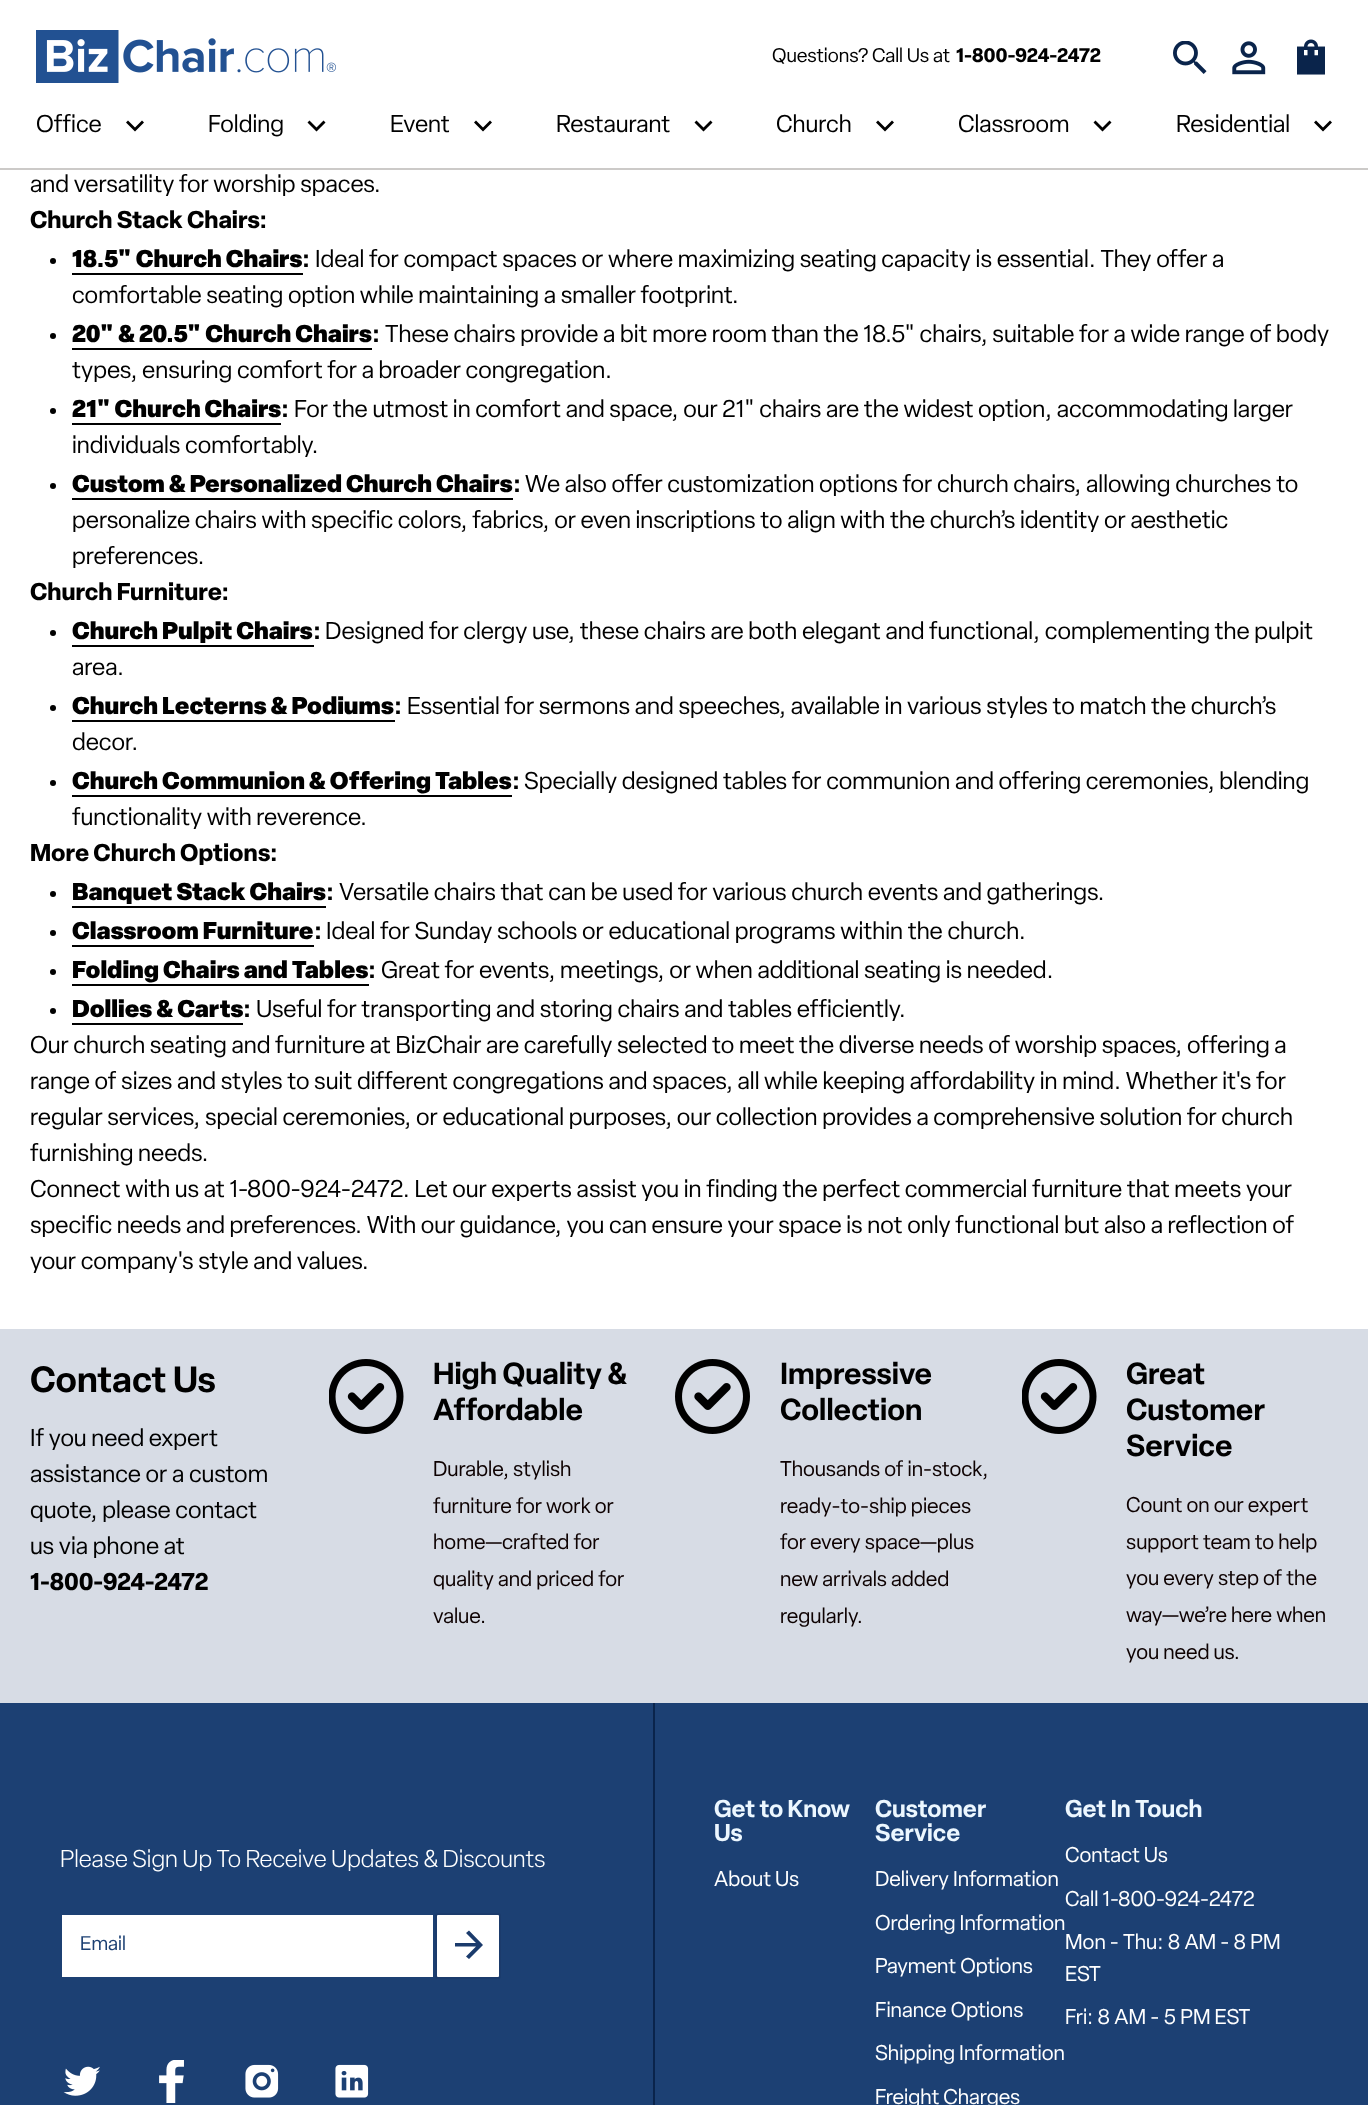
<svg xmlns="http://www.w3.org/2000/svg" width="1368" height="2105">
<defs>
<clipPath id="clip1"><rect x="455" y="1925" width="28" height="40"/></clipPath>
</defs>
<rect width="100%" height="100%" fill="#fff"/>
<rect y="168" width="1368" height="2" fill="#cccac8"/>
<image x="36" y="30" width="300" height="53" href="media/1.png"/>
<text x="772" y="62" style="font-family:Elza;font-size:19.5px;fill:#000">Questions? Call Us at</text>
<text x="956" y="62" style="font-family:Elza;font-size:19.5px;font-weight:bold;fill:#000">1-800-924-2472</text>
<image x="1173" y="41" width="34" height="33" href="media/2.png"/>
<image x="1232" y="41" width="34" height="34" href="media/3.png"/>
<image x="1297" y="39" width="28" height="36" href="media/4.png"/>
<text x="36" y="132" style="font-family:Elza;font-size:24px;fill:#000">Office</text>
<path d="M142 120.5l-7 7l-7-7l-2 2l9 9l9-9z" fill="#000"/>
<text x="208" y="132" style="font-family:Elza;font-size:24px;fill:#000">Folding</text>
<path d="M323.5 120.5l-7 7l-7-7l-2 2l9 9l9-9z" fill="#000"/>
<text x="390" y="132" style="font-family:Elza;font-size:24px;fill:#000">Event</text>
<path d="M490 120.5l-7 7l-7-7l-2 2l9 9l9-9z" fill="#000"/>
<text x="556" y="132" style="font-family:Elza;font-size:24px;fill:#000">Restaurant</text>
<path d="M710.5 120.5l-7 7l-7-7l-2 2l9 9l9-9z" fill="#000"/>
<text x="776" y="132" style="font-family:Elza;font-size:24px;fill:#000">Church</text>
<path d="M892 120.5l-7 7l-7-7l-2 2l9 9l9-9z" fill="#000"/>
<text x="958" y="132" style="font-family:Elza;font-size:24px;fill:#000">Classroom</text>
<path d="M1109.5 120.5l-7 7l-7-7l-2 2l9 9l9-9z" fill="#000"/>
<text x="1176" y="132" style="font-family:Elza;font-size:24px;fill:#000">Residential</text>
<path d="M1330 120.5l-7 7l-7-7l-2 2l9 9l9-9z" fill="#000"/>
<text x="30" y="192" style="font-family:Elza;font-size:24px;fill:#000">and versatility for worship spaces.</text>
<text x="30" y="228" style="font-family:Elza;font-size:24px;font-weight:bold;fill:#000">Church Stack Chairs:</text>
<circle cx="53" cy="261" r="3" fill="#000"/>
<text x="72" y="267" style="font-family:Elza;font-size:24px;font-weight:900;fill:#000">18.5" Church Chairs</text>
<rect x="72" y="273" width="231" height="2" fill="#000"/>
<text x="302" y="267" style="font-family:Elza;font-size:24px;font-weight:bold;fill:#000">:</text>
<text x="315" y="267" style="font-family:Elza;font-size:24px;fill:#000">Ideal for compact spaces or where maximizing seating capacity is essential. They offer a</text>
<text x="72" y="303" style="font-family:Elza;font-size:24px;fill:#000">comfortable seating option while maintaining a smaller footprint.</text>
<circle cx="53" cy="336" r="3" fill="#000"/>
<text x="72" y="342" style="font-family:Elza;font-size:24px;font-weight:900;fill:#000">20" &amp; 20.5" Church Chairs</text>
<rect x="72" y="348" width="300" height="2" fill="#000"/>
<text x="372" y="342" style="font-family:Elza;font-size:24px;font-weight:bold;fill:#000">:</text>
<text x="385" y="342" style="font-family:Elza;font-size:24px;fill:#000">These chairs provide a bit more room than the 18.5" chairs, suitable for a wide range of body</text>
<text x="72" y="378" style="font-family:Elza;font-size:24px;fill:#000">types, ensuring comfort for a broader congregation.</text>
<circle cx="53" cy="411" r="3" fill="#000"/>
<text x="72" y="417" style="font-family:Elza;font-size:24px;font-weight:900;fill:#000">21" Church Chairs</text>
<rect x="72" y="423" width="209" height="2" fill="#000"/>
<text x="281" y="417" style="font-family:Elza;font-size:24px;font-weight:bold;fill:#000">:</text>
<text x="294" y="417" style="font-family:Elza;font-size:24px;fill:#000">For the utmost in comfort and space, our 21" chairs are the widest option, accommodating larger</text>
<text x="72" y="453" style="font-family:Elza;font-size:24px;fill:#000">individuals comfortably.</text>
<circle cx="53" cy="486" r="3" fill="#000"/>
<text x="72" y="492" style="font-family:Elza;font-size:24px;font-weight:900;fill:#000">Custom &amp; Personalized Church Chairs</text>
<rect x="72" y="498" width="441" height="2" fill="#000"/>
<text x="513" y="492" style="font-family:Elza;font-size:24px;font-weight:bold;fill:#000">:</text>
<text x="525" y="492" style="font-family:Elza;font-size:24px;fill:#000">We also offer customization options for church chairs, allowing churches to</text>
<text x="72" y="528" style="font-family:Elza;font-size:24px;fill:#000">personalize chairs with specific colors, fabrics, or even inscriptions to align with the church’s identity or aesthetic</text>
<text x="72" y="564" style="font-family:Elza;font-size:24px;fill:#000">preferences.</text>
<text x="30" y="600" style="font-family:Elza;font-size:24px;font-weight:bold;fill:#000">Church Furniture:</text>
<circle cx="53" cy="633" r="3" fill="#000"/>
<text x="72" y="639" style="font-family:Elza;font-size:24px;font-weight:900;fill:#000">Church Pulpit Chairs</text>
<rect x="72" y="645" width="242" height="2" fill="#000"/>
<text x="313" y="639" style="font-family:Elza;font-size:24px;font-weight:bold;fill:#000">:</text>
<text x="325" y="639" style="font-family:Elza;font-size:24px;fill:#000">Designed for clergy use, these chairs are both elegant and functional, complementing the pulpit</text>
<text x="72" y="675" style="font-family:Elza;font-size:24px;fill:#000">area.</text>
<circle cx="53" cy="708" r="3" fill="#000"/>
<text x="72" y="714" style="font-family:Elza;font-size:24px;font-weight:900;fill:#000">Church Lecterns &amp; Podiums</text>
<rect x="72" y="720" width="323" height="2" fill="#000"/>
<text x="394" y="714" style="font-family:Elza;font-size:24px;font-weight:bold;fill:#000">:</text>
<text x="407" y="714" style="font-family:Elza;font-size:24px;fill:#000">Essential for sermons and speeches, available in various styles to match the church’s</text>
<text x="72" y="750" style="font-family:Elza;font-size:24px;fill:#000">decor.</text>
<circle cx="53" cy="783" r="3" fill="#000"/>
<text x="72" y="789" style="font-family:Elza;font-size:24px;font-weight:900;fill:#000">Church Communion &amp; Offering Tables</text>
<rect x="72" y="795" width="440" height="2" fill="#000"/>
<text x="512" y="789" style="font-family:Elza;font-size:24px;font-weight:bold;fill:#000">:</text>
<text x="524" y="789" style="font-family:Elza;font-size:24px;fill:#000">Specially designed tables for communion and offering ceremonies, blending</text>
<text x="72" y="825" style="font-family:Elza;font-size:24px;fill:#000">functionality with reverence.</text>
<text x="30" y="861" style="font-family:Elza;font-size:24px;font-weight:bold;fill:#000">More Church Options:</text>
<circle cx="53" cy="894" r="3" fill="#000"/>
<text x="72" y="900" style="font-family:Elza;font-size:24px;font-weight:900;fill:#000">Banquet Stack Chairs</text>
<rect x="72" y="906" width="254" height="2" fill="#000"/>
<text x="326" y="900" style="font-family:Elza;font-size:24px;font-weight:bold;fill:#000">:</text>
<text x="339" y="900" style="font-family:Elza;font-size:24px;fill:#000">Versatile chairs that can be used for various church events and gatherings.</text>
<circle cx="53" cy="933" r="3" fill="#000"/>
<text x="72" y="939" style="font-family:Elza;font-size:24px;font-weight:900;fill:#000">Classroom Furniture</text>
<rect x="72" y="945" width="242" height="2" fill="#000"/>
<text x="314" y="939" style="font-family:Elza;font-size:24px;font-weight:bold;fill:#000">:</text>
<text x="326" y="939" style="font-family:Elza;font-size:24px;fill:#000">Ideal for Sunday schools or educational programs within the church.</text>
<circle cx="53" cy="972" r="3" fill="#000"/>
<text x="72" y="978" style="font-family:Elza;font-size:24px;font-weight:900;fill:#000">Folding Chairs and Tables</text>
<rect x="72" y="984" width="297" height="2" fill="#000"/>
<text x="368" y="978" style="font-family:Elza;font-size:24px;font-weight:bold;fill:#000">:</text>
<text x="381" y="978" style="font-family:Elza;font-size:24px;fill:#000">Great for events, meetings, or when additional seating is needed.</text>
<circle cx="53" cy="1011" r="3" fill="#000"/>
<text x="72" y="1017" style="font-family:Elza;font-size:24px;font-weight:900;fill:#000">Dollies &amp; Carts</text>
<rect x="72" y="1023" width="171" height="2" fill="#000"/>
<text x="243" y="1017" style="font-family:Elza;font-size:24px;font-weight:bold;fill:#000">:</text>
<text x="256" y="1017" style="font-family:Elza;font-size:24px;fill:#000">Useful for transporting and storing chairs and tables efficiently.</text>
<text x="30" y="1053" style="font-family:Elza;font-size:24px;fill:#000">Our church seating and furniture at BizChair are carefully selected to meet the diverse needs of worship spaces, offering a</text>
<text x="30" y="1089" style="font-family:Elza;font-size:24px;fill:#000">range of sizes and styles to suit different congregations and spaces, all while keeping affordability in mind. Whether it's for</text>
<text x="30" y="1125" style="font-family:Elza;font-size:24px;fill:#000">regular services, special ceremonies, or educational purposes, our collection provides a comprehensive solution for church</text>
<text x="30" y="1161" style="font-family:Elza;font-size:24px;fill:#000">furnishing needs.</text>
<text x="30" y="1197" style="font-family:Elza;font-size:24px;fill:#000">Connect with us at 1-800-924-2472. Let our experts assist you in finding the perfect commercial furniture that meets your</text>
<text x="30" y="1233" style="font-family:Elza;font-size:24px;fill:#000">specific needs and preferences. With our guidance, you can ensure your space is not only functional but also a reflection of</text>
<text x="30" y="1269" style="font-family:Elza;font-size:24px;fill:#000">your company's style and values.</text>
<rect y="1329" width="1368" height="374" fill="#d7dce5"/>
<text x="30" y="1392" style="font-family:Elza;font-size:36px;font-weight:600;fill:#000">Contact Us</text>
<text x="30" y="1446" style="font-family:Elza;font-size:24px;fill:#000">If you need expert</text>
<text x="30" y="1482" style="font-family:Elza;font-size:24px;fill:#000">assistance or a custom</text>
<text x="30" y="1518" style="font-family:Elza;font-size:24px;fill:#000">quote, please contact</text>
<text x="30" y="1554" style="font-family:Elza;font-size:24px;fill:#000">us via phone at</text>
<text x="30" y="1590" style="font-family:Elza;font-size:24px;font-weight:bold;fill:#000">1-800-924-2472</text>
<image x="329" y="1359" width="75" height="75" href="media/5.png"/>
<text x="433" y="1384" style="font-family:Elza;font-size:30px;font-weight:600;fill:#000">High Quality &amp;</text>
<text x="433" y="1420" style="font-family:Elza;font-size:30px;font-weight:600;fill:#000">Affordable</text>
<text x="433" y="1476" style="font-family:Elza;font-size:21px;fill:#0d0101">Durable, stylish</text>
<text x="433" y="1513" style="font-family:Elza;font-size:21px;fill:#0d0101">furniture for work or</text>
<text x="433" y="1549" style="font-family:Elza;font-size:21px;fill:#0d0101">home—crafted for</text>
<text x="433" y="1586" style="font-family:Elza;font-size:21px;fill:#0d0101">quality and priced for</text>
<text x="433" y="1623" style="font-family:Elza;font-size:21px;fill:#0d0101">value.</text>
<image x="675" y="1359" width="75" height="75" href="media/6.png"/>
<text x="780" y="1384" style="font-family:Elza;font-size:30px;font-weight:600;fill:#000">Impressive</text>
<text x="780" y="1420" style="font-family:Elza;font-size:30px;font-weight:600;fill:#000">Collection</text>
<text x="780" y="1476" style="font-family:Elza;font-size:21px;fill:#0d0101">Thousands of in-stock,</text>
<text x="780" y="1513" style="font-family:Elza;font-size:21px;fill:#0d0101">ready-to-ship pieces</text>
<text x="780" y="1549" style="font-family:Elza;font-size:21px;fill:#0d0101">for every space—plus</text>
<text x="780" y="1586" style="font-family:Elza;font-size:21px;fill:#0d0101">new arrivals added</text>
<text x="780" y="1623" style="font-family:Elza;font-size:21px;fill:#0d0101">regularly.</text>
<image x="1022" y="1359" width="75" height="75" href="media/5.png"/>
<text x="1126" y="1384" style="font-family:Elza;font-size:30px;font-weight:600;fill:#000">Great</text>
<text x="1126" y="1420" style="font-family:Elza;font-size:30px;font-weight:600;fill:#000">Customer</text>
<text x="1126" y="1456" style="font-family:Elza;font-size:30px;font-weight:600;fill:#000">Service</text>
<text x="1126" y="1512" style="font-family:Elza;font-size:21px;fill:#0d0101">Count on our expert</text>
<text x="1126" y="1549" style="font-family:Elza;font-size:21px;fill:#0d0101">support team to help</text>
<text x="1126" y="1585" style="font-family:Elza;font-size:21px;fill:#0d0101">you every step of the</text>
<text x="1126" y="1622" style="font-family:Elza;font-size:21px;fill:#0d0101">way—we’re here when</text>
<text x="1126" y="1659" style="font-family:Elza;font-size:21px;fill:#0d0101">you need us.</text>
<rect y="1703" width="1368" height="402" fill="#1c4073"/>
<rect x="653" y="1703" width="2" height="402" fill="#0a244b"/>
<text x="60" y="1867" style="font-family:Elza;font-size:24px;font-weight:300;fill:#fff">Please Sign Up To Receive Updates &amp; Discounts</text>
<rect x="62" y="1915" width="371" height="62" fill="#fff"/>
<text x="80" y="1950" style="font-family:Elza;font-size:19.5px;fill:#1c4073">Email</text>
<rect x="436" y="1914" width="64" height="64" rx="2" fill="#fff" stroke="#1b3b6c" stroke-width="2"/>
<g clip-path="url(#clip1)">
<path d="M469 1930.5l-3 2.5l10 10h-21.5v3.5h21.5l-10 10l3 2.5l14-14z" fill="#1b3b6c"/>
</g>
<image x="63" y="2066" width="37" height="30" href="media/7.png"/>
<image x="159" y="2060" width="25" height="43" href="media/8.png"/>
<image x="245" y="2064" width="34" height="34" href="media/9.png"/>
<image x="335" y="2064" width="34" height="34" href="media/10.png"/>
<text x="714" y="1817" style="font-family:Elza;font-size:24px;font-weight:600;fill:#ecf7ff">Get to Know</text>
<text x="714" y="1841" style="font-family:Elza;font-size:24px;font-weight:600;fill:#ecf7ff">Us</text>
<text x="714" y="1886" style="font-family:Elza;font-size:21px;fill:#fff">About Us</text>
<text x="875" y="1817" style="font-family:Elza;font-size:24px;font-weight:600;fill:#ecf7ff">Customer</text>
<text x="875" y="1841" style="font-family:Elza;font-size:24px;font-weight:600;fill:#ecf7ff">Service</text>
<text x="875" y="1886" style="font-family:Elza;font-size:21px;fill:#fff">Delivery Information</text>
<text x="875" y="1930" style="font-family:Elza;font-size:21px;fill:#fff">Ordering Information</text>
<text x="875" y="1973" style="font-family:Elza;font-size:21px;fill:#fff">Payment Options</text>
<text x="875" y="2017" style="font-family:Elza;font-size:21px;fill:#fff">Finance Options</text>
<text x="875" y="2060" style="font-family:Elza;font-size:21px;fill:#fff">Shipping Information</text>
<text x="875" y="2104" style="font-family:Elza;font-size:21px;fill:#fff">Freight Charges</text>
<text x="1065" y="1817" style="font-family:Elza;font-size:24px;font-weight:600;fill:#ecf7ff">Get In Touch</text>
<text x="1065" y="1862" style="font-family:Elza;font-size:21px;fill:#fff">Contact Us</text>
<text x="1065" y="1906" style="font-family:Elza;font-size:21px;fill:#fff">Call 1-800-924-2472</text>
<text x="1065" y="1949" style="font-family:Elza;font-size:21px;fill:#fff">Mon - Thu: 8 AM - 8 PM</text>
<text x="1065" y="1981" style="font-family:Elza;font-size:21px;fill:#fff">EST</text>
<text x="1065" y="2024" style="font-family:Elza;font-size:21px;fill:#fff">Fri: 8 AM - 5 PM EST</text>
</svg>
